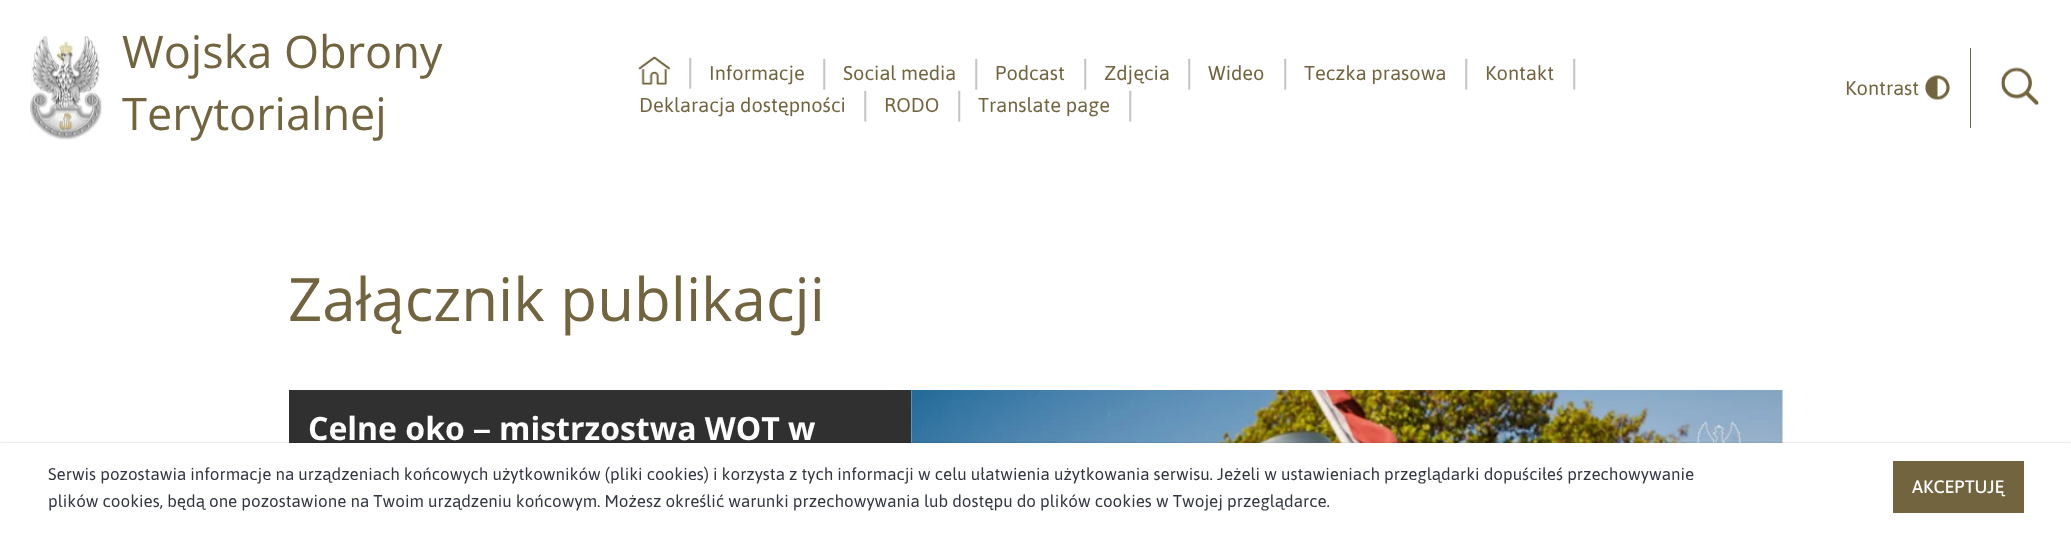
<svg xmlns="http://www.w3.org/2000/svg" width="2071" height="536">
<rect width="100%" height="100%" fill="#fff"/>
<image x="30" y="36" width="72" height="104" href="media/1.png"/>
<text x="122" y="68" style="font-family:Open Sans;font-size:45px;fill:#71643e">Wojska Obrony</text>
<text x="122" y="130" style="font-family:Open Sans;font-size:45px;fill:#71643e">Terytorialnej</text>
<image x="638" y="56" width="32" height="29" href="media/2.png"/>
<text x="686" y="84" style="font-family:Asap;font-size:34px;fill:#c2c3c7">|</text>
<text x="709" y="80" style="font-family:Asap;font-size:20px;fill:#71643e">Informacje</text>
<text x="820" y="85" style="font-family:Asap;font-size:34px;fill:#c2c3c7">|</text>
<text x="843" y="80" style="font-family:Asap;font-size:20px;fill:#71643e">Social media</text>
<text x="972" y="85" style="font-family:Asap;font-size:34px;fill:#c2c3c7">|</text>
<text x="995" y="80" style="font-family:Asap;font-size:20px;fill:#71643e">Podcast</text>
<text x="1081" y="85" style="font-family:Asap;font-size:34px;fill:#c2c3c7">|</text>
<text x="1104" y="80" style="font-family:Asap;font-size:20px;fill:#71643e">Zdjęcia</text>
<text x="1185" y="85" style="font-family:Asap;font-size:34px;fill:#c2c3c7">|</text>
<text x="1208" y="80" style="font-family:Asap;font-size:20px;fill:#71643e">Wideo</text>
<text x="1281" y="85" style="font-family:Asap;font-size:34px;fill:#c2c3c7">|</text>
<text x="1304" y="80" style="font-family:Asap;font-size:20px;fill:#71643e">Teczka prasowa</text>
<text x="1462" y="85" style="font-family:Asap;font-size:34px;fill:#c2c3c7">|</text>
<text x="1485" y="80" style="font-family:Asap;font-size:20px;fill:#71643e">Kontakt</text>
<text x="1570" y="85" style="font-family:Asap;font-size:34px;fill:#c2c3c7">|</text>
<text x="639" y="112" style="font-family:Asap;font-size:20px;fill:#71643e">Deklaracja dostępności</text>
<text x="861" y="117" style="font-family:Asap;font-size:34px;fill:#c2c3c7">|</text>
<text x="884" y="112" style="font-family:Asap;font-size:20px;fill:#71643e">RODO</text>
<text x="955" y="117" style="font-family:Asap;font-size:34px;fill:#c2c3c7">|</text>
<text x="978" y="112" style="font-family:Asap;font-size:20px;fill:#71643e">Translate page</text>
<text x="1126" y="117" style="font-family:Asap;font-size:34px;fill:#c2c3c7">|</text>
<text x="1845" y="95" style="font-family:Asap;font-size:20px;fill:#71643e">Kontrast</text>
<image x="1925" y="75" width="25" height="25" href="media/3.png"/>
<rect x="1970" y="48" width="1" height="80" fill="#71643e"/>
<image x="2001" y="67" width="38" height="39" href="media/4.png"/>
<text x="288" y="321" style="font-family:Open Sans;font-size:60px;fill:#71643e">Załącznik publikacji</text>
<rect x="289" y="390" width="622" height="53" fill="#303030"/>
<text x="308" y="440" style="font-family:Open Sans;font-size:32px;font-weight:bold;fill:#fefefe">Celne oko</text>
<text x="473" y="440" style="font-family:Liberation Sans;font-size:32px;font-weight:bold;fill:#fefefe">–</text>
<text x="499" y="440" style="font-family:Open Sans;font-size:32px;font-weight:bold;fill:#fefefe">mistrzostwa WOT w</text>
<image x="911" y="390" width="872" height="53" href="media/5.png"/>
<rect y="443" width="2071" height="93" fill="#00000033" filter="blur(1px)"/>
<rect y="443" width="2071" height="93" fill="#fff"/>
<text x="48" y="480" style="font-family:Asap;font-size:17px;fill:#323643">Serwis pozostawia informacje na urządzeniach końcowych użytkowników (pliki cookies) i korzysta z tych informacji w celu ułatwienia użytkowania serwisu. Jeżeli w ustawieniach przeglądarki dopuściłeś przechowywanie</text>
<text x="48" y="507" style="font-family:Asap;font-size:17px;fill:#323643">plików cookies, będą one pozostawione na Twoim urządzeniu końcowym. Możesz określić warunki przechowywania lub dostępu do plików cookies w Twojej przeglądarce.</text>
<rect x="1893" y="461" width="131" height="52" fill="#71643e"/>
<text x="1912" y="493" style="font-family:Asap Medium;font-size:18px;font-weight:500;fill:#fefefe">AKCEPTUJĘ</text>
</svg>
